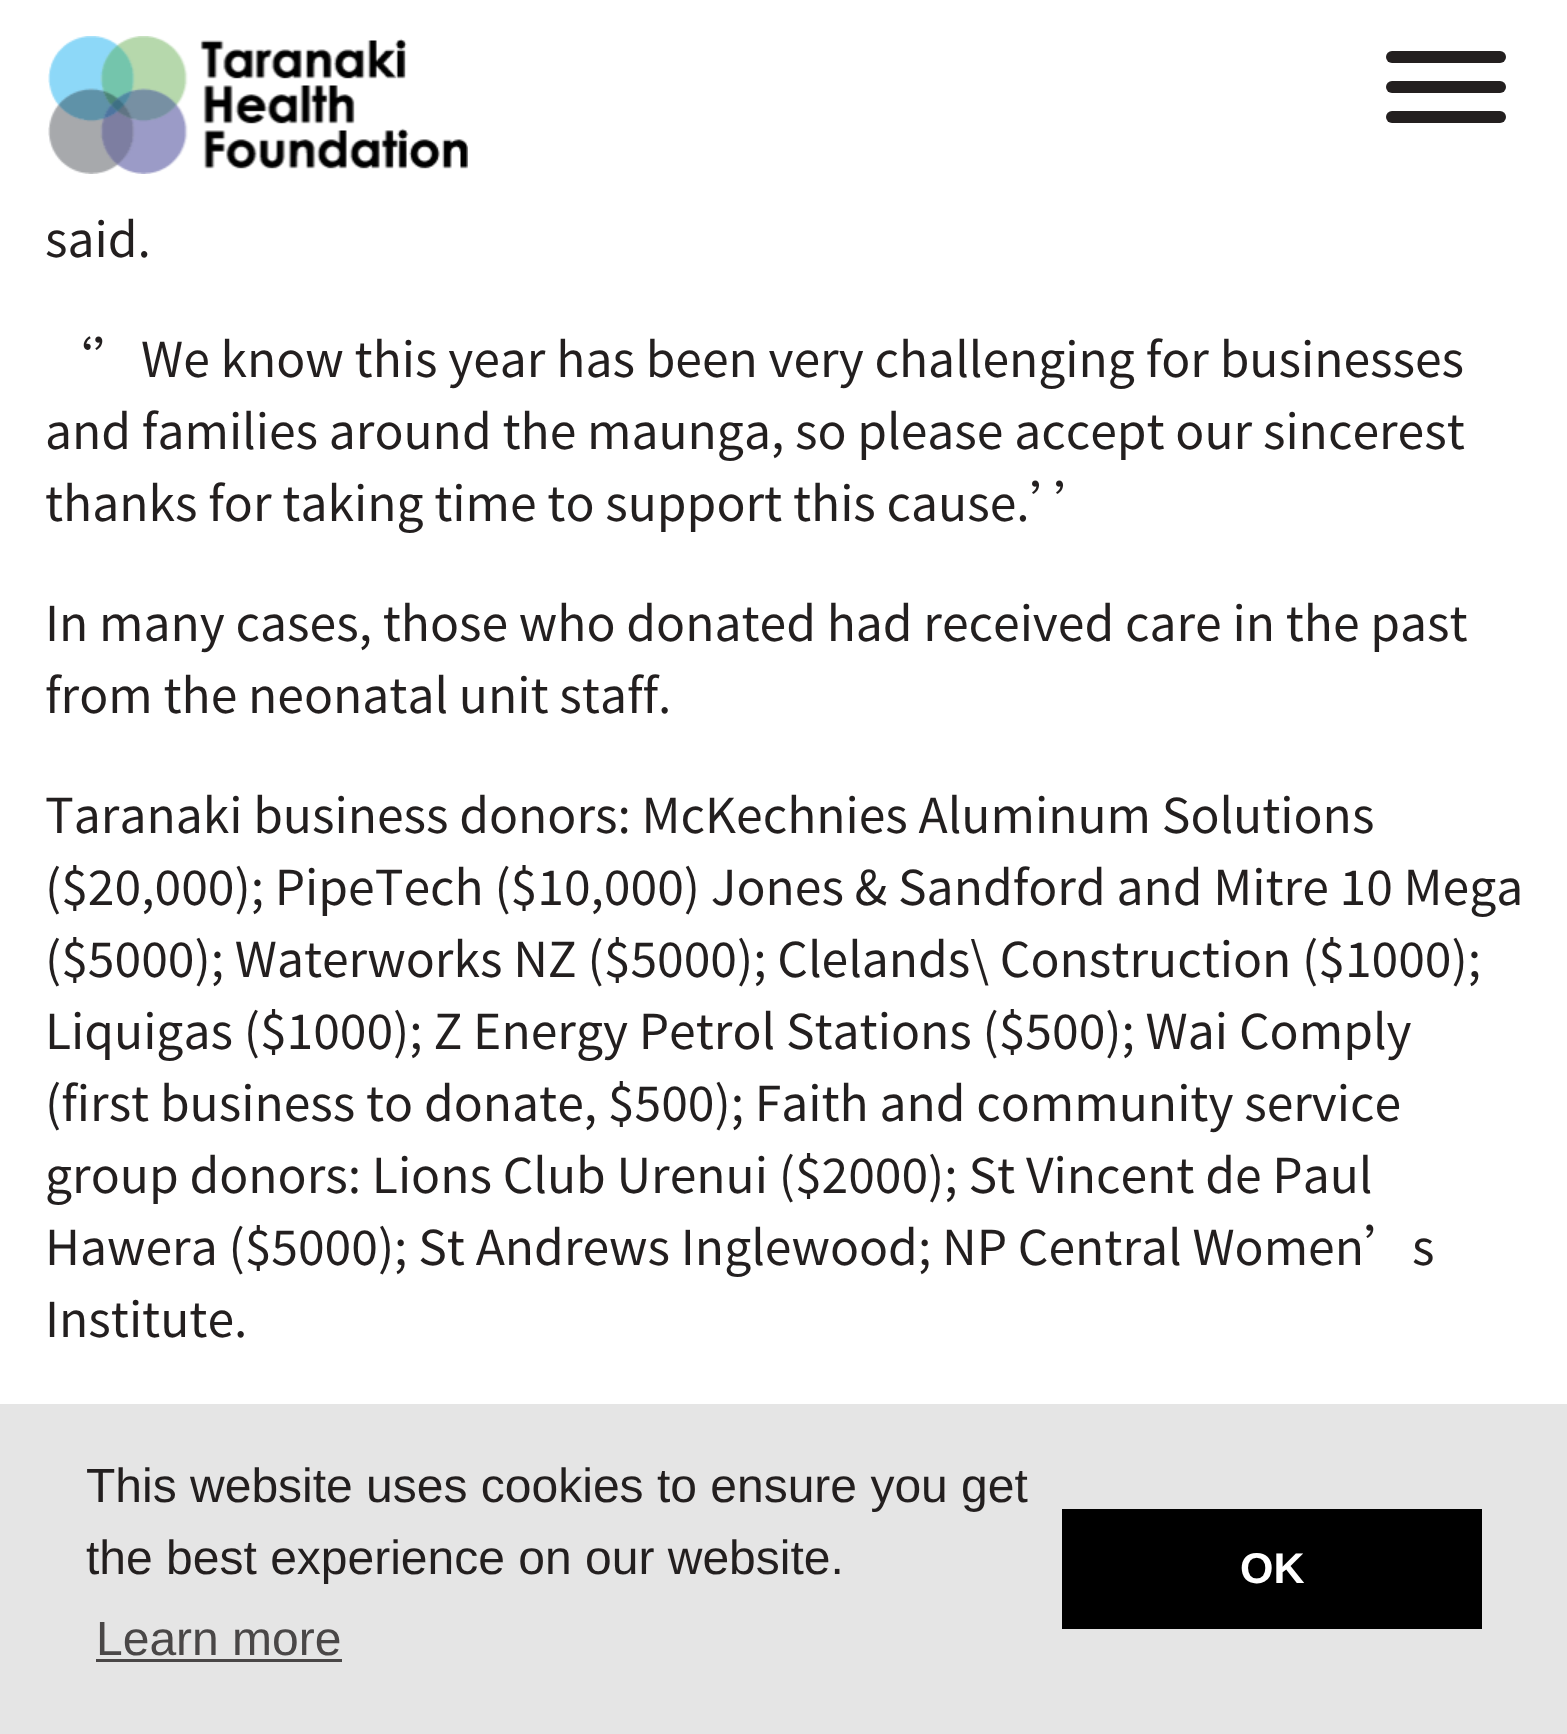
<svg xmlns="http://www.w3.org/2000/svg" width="1567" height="1734">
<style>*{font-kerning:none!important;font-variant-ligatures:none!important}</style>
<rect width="100%" height="100%" fill="#fff"/>
<image x="48" y="36" width="420" height="138" href="media/1.png"/>
<rect x="1386" y="81" width="120" height="12" rx="6" fill="#231f1f"/>
<rect x="1386" y="51" width="120" height="12" rx="6" fill="#231f1f"/>
<rect x="1386" y="111" width="120" height="12" rx="6" fill="#231f1f"/>
<text x="45" y="257" style="font-family:Noto Sans TC;font-size:48px;fill:#231f1f">said.</text>
<text x="45" y="377" style="font-family:Noto Sans TC;font-size:48px;fill:#231f1f">‘’We know this year has been very challenging for businesses</text>
<text x="45" y="449" style="font-family:Noto Sans TC;font-size:48px;fill:#231f1f">and families around the maunga, so please accept our sincerest</text>
<text x="45" y="521" style="font-family:Noto Sans TC;font-size:48px;fill:#231f1f">thanks for taking time to support this cause.’’</text>
<text x="45" y="641" style="font-family:Noto Sans TC;font-size:48px;fill:#231f1f">In many cases, those who donated had received care in the past</text>
<text x="45" y="713" style="font-family:Noto Sans TC;font-size:48px;fill:#231f1f">from the neonatal unit staff.</text>
<text x="45" y="833" style="font-family:Noto Sans TC;font-size:48px;fill:#231f1f">Taranaki business donors: McKechnies Aluminum Solutions</text>
<text x="45" y="905" style="font-family:Noto Sans TC;font-size:48px;fill:#231f1f">($20,000); PipeTech ($10,000) Jones &amp; Sandford and Mitre 10 Mega</text>
<text x="45" y="977" style="font-family:Noto Sans TC;font-size:48px;fill:#231f1f">($5000); Waterworks NZ ($5000); Clelands\ Construction ($1000);</text>
<text x="45" y="1049" style="font-family:Noto Sans TC;font-size:48px;fill:#231f1f">Liquigas ($1000); Z Energy Petrol Stations ($500); Wai</text>
<text x="1239" y="1049" style="font-family:Noto Sans TC;font-size:48px;fill:#231f1f">Comply</text>
<text x="45" y="1121" style="font-family:Noto Sans TC;font-size:48px;fill:#231f1f">(first business to donate, $500); Faith and community service</text>
<text x="45" y="1193" style="font-family:Noto Sans TC;font-size:48px;fill:#231f1f">group donors: Lions Club Urenui ($2000); St Vincent de Paul</text>
<text x="45" y="1265" style="font-family:Noto Sans TC;font-size:48px;fill:#231f1f">Hawera ($5000); St Andrews Inglewood; NP Central Women’s</text>
<text x="45" y="1337" style="font-family:Noto Sans TC;font-size:48px;fill:#231f1f">Institute.</text>
<rect y="1404" width="1567" height="330" fill="#e5e5e5"/>
<text x="86" y="1502" style="font-family:Liberation Sans;font-size:48px;fill:#231f1f">This website uses cookies to ensure you get</text>
<text x="86" y="1574" style="font-family:Liberation Sans;font-size:48px;fill:#231f1f">the best experience on our website.</text>
<text x="96" y="1655" style="font-family:Liberation Sans;font-size:48px;fill:#4a4747">Learn more</text>
<rect x="96" y="1659" width="246" height="3" fill="#4a4747"/>
<rect x="1062" y="1509" width="420" height="120" fill="#000"/>
<text x="1240" y="1583" style="font-family:Liberation Sans;font-size:43px;font-weight:bold;fill:#fff">OK</text>
</svg>
